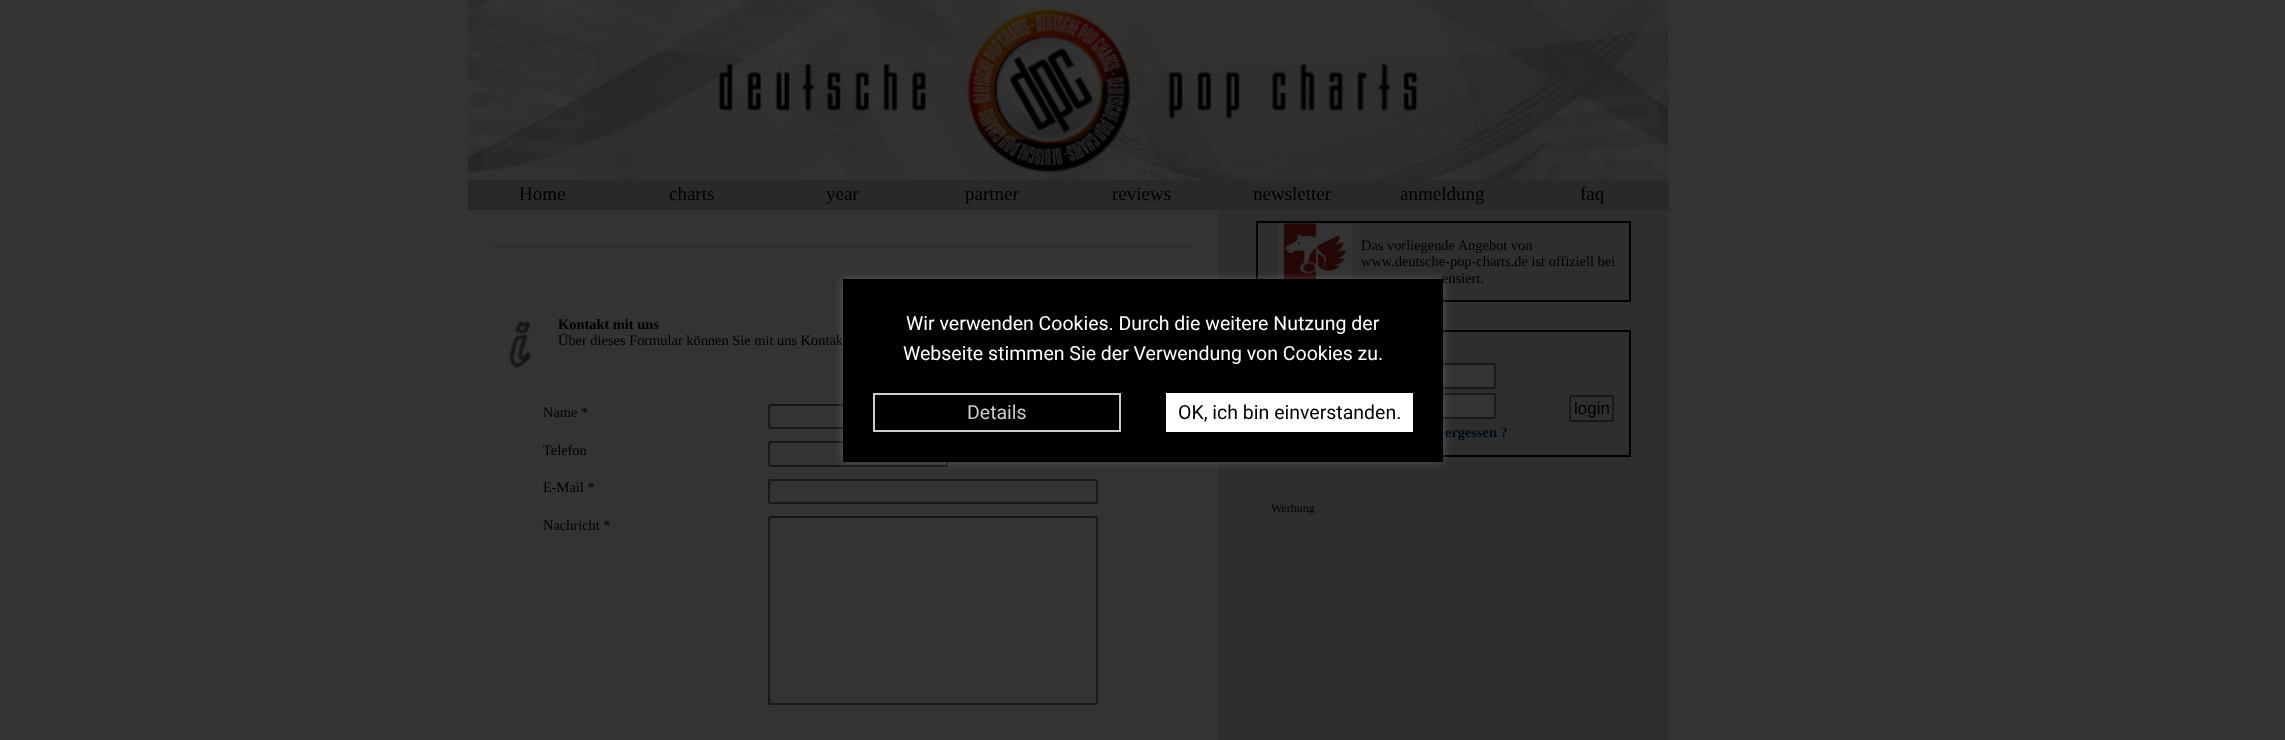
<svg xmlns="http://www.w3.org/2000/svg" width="2285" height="740">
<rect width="100%" height="100%" fill="#333"/>
<image x="468" y="0" width="1200" height="180" href="media/1.png"/>
<rect x="468" y="180" width="1200" height="3" fill="#2a292a"/>
<rect x="617" y="180" width="1" height="30" fill="#2a292a"/>
<rect x="468" y="206" width="150" height="4" fill="#2a292a"/>
<rect x="468" y="183" width="149" height="23" fill="#2a292a"/>
<text x="519" y="200" style="font-family:Liberation Serif;font-size:19px;fill:#000">Home</text>
<rect x="767" y="180" width="1" height="30" fill="#2a292a"/>
<rect x="618" y="206" width="150" height="4" fill="#2a292a"/>
<rect x="618" y="183" width="149" height="23" fill="#2a292a"/>
<text x="669" y="200" style="font-family:Liberation Serif;font-size:19px;fill:#000">charts</text>
<rect x="917" y="180" width="1" height="30" fill="#2a292a"/>
<rect x="768" y="206" width="150" height="4" fill="#2a292a"/>
<rect x="768" y="183" width="149" height="23" fill="#2a292a"/>
<text x="826" y="200" style="font-family:Liberation Serif;font-size:19px;fill:#000">year</text>
<rect x="1067" y="180" width="1" height="30" fill="#2a292a"/>
<rect x="918" y="206" width="150" height="4" fill="#2a292a"/>
<rect x="918" y="183" width="149" height="23" fill="#2a292a"/>
<text x="965" y="200" style="font-family:Liberation Serif;font-size:19px;fill:#000">partner</text>
<rect x="1217" y="180" width="1" height="30" fill="#2a292a"/>
<rect x="1068" y="206" width="150" height="4" fill="#2a292a"/>
<rect x="1068" y="183" width="149" height="23" fill="#2a292a"/>
<text x="1112" y="200" style="font-family:Liberation Serif;font-size:19px;fill:#000">reviews</text>
<rect x="1367" y="180" width="1" height="30" fill="#2a292a"/>
<rect x="1218" y="206" width="150" height="4" fill="#2a292a"/>
<rect x="1218" y="183" width="149" height="23" fill="#2a292a"/>
<text x="1253" y="200" style="font-family:Liberation Serif;font-size:19px;fill:#000">newsletter</text>
<rect x="1517" y="180" width="1" height="30" fill="#2a292a"/>
<rect x="1368" y="206" width="150" height="4" fill="#2a292a"/>
<rect x="1368" y="183" width="149" height="23" fill="#2a292a"/>
<text x="1400" y="200" style="font-family:Liberation Serif;font-size:19px;fill:#000">anmeldung</text>
<rect x="1667" y="180" width="2" height="30" fill="#2a292a"/>
<rect x="1518" y="206" width="150" height="4" fill="#2a292a"/>
<rect x="1518" y="183" width="149" height="23" fill="#2a292a"/>
<text x="1580" y="200" style="font-family:Liberation Serif;font-size:19px;fill:#000">faq</text>
<rect x="492" y="245" width="702" height="2" fill="#2e2e2e"/>
<image x="509" y="320" width="23" height="48" href="media/2.png"/>
<text x="558" y="329" style="font-family:Liberation Serif;font-size:14.4px;font-weight:bold;fill:#000">Kontakt mit uns</text>
<text x="558" y="345" style="font-family:Liberation Serif;font-size:14.4px;fill:#000">Über dieses Formular können Sie mit uns Kontak</text>
<text x="543" y="417" style="font-family:Liberation Serif;font-size:14.4px;fill:#000">Name *</text>
<rect x="769" y="405" width="328" height="23" rx="2" fill="none" stroke="#181818" stroke-width="2"/>
<text x="543" y="455" style="font-family:Liberation Serif;font-size:14.4px;fill:#000">Telefon</text>
<rect x="769" y="442" width="178" height="24" rx="2" fill="none" stroke="#181818" stroke-width="2"/>
<text x="543" y="492" style="font-family:Liberation Serif;font-size:14.4px;fill:#000">E-Mail *</text>
<rect x="769" y="480" width="328" height="23" rx="2" fill="none" stroke="#181818" stroke-width="2"/>
<text x="543" y="530" style="font-family:Liberation Serif;font-size:14.4px;fill:#000">Nachricht *</text>
<rect x="769" y="517" width="328" height="187" rx="2" fill="none" stroke="#181818" stroke-width="2"/>
<rect x="1218" y="210" width="450" height="530" fill="#2e2e2e"/>
<rect x="1256" y="221" width="375" height="2" fill="#000"/>
<rect x="1629" y="221" width="2" height="81" fill="#000"/>
<rect x="1443" y="300" width="188" height="2" fill="#000"/>
<rect x="1256" y="221" width="2" height="58" fill="#000"/>
<image x="1278" y="223" width="75" height="56" href="media/3.png"/>
<text x="1361" y="250" style="font-family:Liberation Serif;font-size:14.4px;fill:#000">Das vorliegende Angebot von</text>
<text x="1361" y="266" style="font-family:Liberation Serif;font-size:14.4px;fill:#000">www.deutsche-pop-charts.de ist offiziell bei</text>
<text x="1442" y="283" style="font-family:Liberation Serif;font-size:14.4px;fill:#000">ensiert.</text>
<rect x="1443" y="330" width="188" height="2" fill="#000"/>
<rect x="1629" y="330" width="2" height="126" fill="#000"/>
<rect x="1443" y="455" width="188" height="2" fill="#000"/>
<rect x="1347" y="364" width="148" height="24" rx="2" fill="#333" stroke="#181818" stroke-width="2"/>
<rect x="1347" y="394" width="148" height="24" rx="2" fill="#333" stroke="#181818" stroke-width="2"/>
<rect x="1570" y="396" width="43" height="25" rx="2" fill="none" stroke="#181818" stroke-width="2"/>
<text x="1574" y="414" style="font-family:Liberation Sans;font-size:17px;fill:#000">login</text>
<text x="1445" y="437" style="font-family:Liberation Serif;font-size:14.4px;font-weight:bold;fill:#000a14">ergessen ?</text>
<text x="1271" y="512" style="font-family:Liberation Serif;font-size:12px;fill:#000">Werbung</text>
<rect x="843" y="279" width="600" height="183" fill="#ffffff33" filter="blur(4px)"/>
<rect x="843" y="279" width="600" height="183" fill="#000"/>
<text x="906" y="330" style="font-family:Roboto;font-size:19.5px;fill:#fff">Wir verwenden Cookies. Durch die weitere Nutzung der</text>
<text x="903" y="360" style="font-family:Roboto;font-size:19.5px;fill:#fff">Webseite stimmen Sie der Verwendung von Cookies zu.</text>
<rect x="874" y="394" width="246" height="37" fill="none" stroke="#ccc" stroke-width="2"/>
<text x="967" y="419" style="font-family:Roboto;font-size:19.5px;fill:#ccc">Details</text>
<rect x="1166" y="393" width="247" height="39" fill="#fff"/>
<text x="1178" y="419" style="font-family:Roboto;font-size:19.5px;fill:#000">OK, ich bin einverstanden.</text>
</svg>
